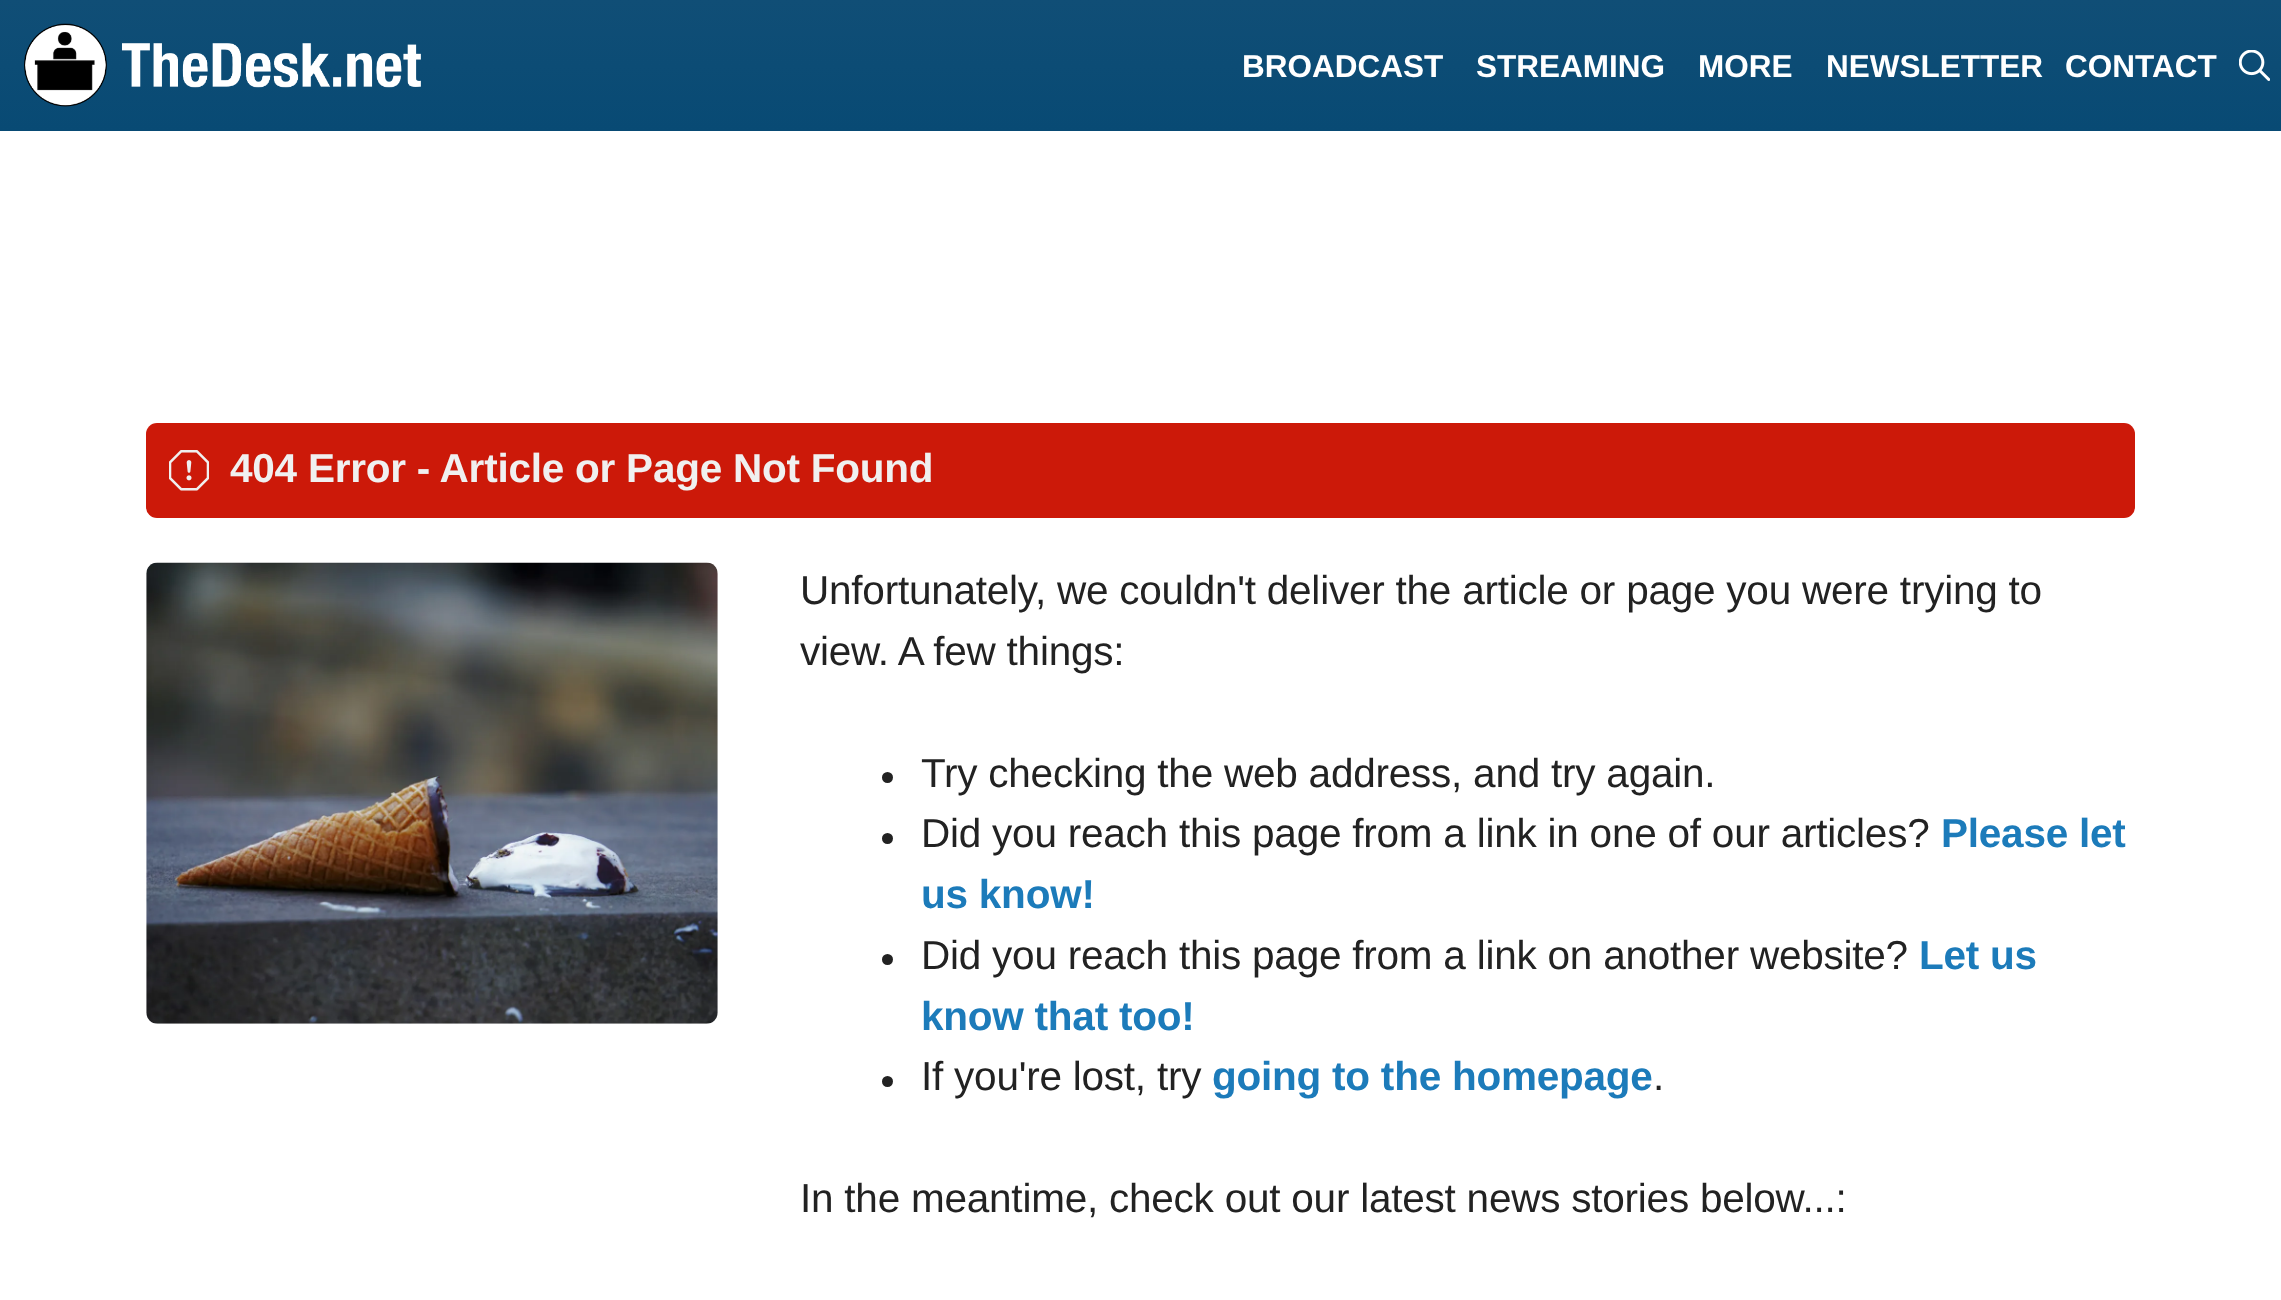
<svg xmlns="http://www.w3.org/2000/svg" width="2281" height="1300">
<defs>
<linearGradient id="g1" gradientUnits="userSpaceOnUse" x1="1141" y1="0" x2="1141" y2="131"><stop offset="0" stop-color="#104e76"/><stop offset="1" stop-color="#084a74"/></linearGradient>
</defs>
<rect width="100%" height="100%" fill="#fff"/>
<rect width="2281" height="131" fill="url(#g1)"/>
<image x="24" y="23" width="397" height="84" href="media/1.png"/>
<text x="1242" y="77" style="font-family:Liberation Sans;font-size:31.5px;font-weight:bold;fill:#fff">BROADCAST</text>
<text x="1476" y="77" style="font-family:Liberation Sans;font-size:31.5px;font-weight:bold;fill:#fff">STREAMING</text>
<text x="1698" y="77" style="font-family:Liberation Sans;font-size:31.5px;font-weight:bold;fill:#fff">MORE</text>
<text x="1826" y="77" style="font-family:Liberation Sans;font-size:31.5px;font-weight:bold;fill:#fff">NEWSLETTER</text>
<text x="2065" y="77" style="font-family:Liberation Sans;font-size:31.5px;font-weight:bold;fill:#fff">CONTACT</text>
<image x="2239" y="50" width="31" height="31" href="media/2.png"/>
<rect x="146" y="423" width="1989" height="95" rx="11" fill="#cc1909"/>
<image x="169" y="450" width="40" height="41" href="media/3.png"/>
<text x="230" y="482" style="font-family:Liberation Sans;font-size:40.5px;font-weight:bold;letter-spacing:-0.23px;fill:#f0f0f0">404 Error - Article or Page Not Found</text>
<image x="146" y="562" width="572" height="462" href="media/4.png"/>
<text x="800" y="604" style="font-family:Liberation Sans;font-size:40.5px;letter-spacing:-0.23px;fill:#222">Unfortunately, we couldn't deliver the article or page you were trying to</text>
<text x="800" y="665" style="font-family:Liberation Sans;font-size:40.5px;letter-spacing:-0.23px;fill:#222">view. A few things:</text>
<circle cx="887.5" cy="777.5" r="5.5" fill="#222"/>
<text x="921" y="787" style="font-family:Liberation Sans;font-size:40.5px;letter-spacing:-0.23px;fill:#222">Try checking the web address, and try again.</text>
<circle cx="887.5" cy="838.5" r="5.5" fill="#222"/>
<text x="921" y="847" style="font-family:Liberation Sans;font-size:40.5px;letter-spacing:-0.23px;fill:#222">Did you reach this page from a link in one of our articles?</text>
<text x="1941" y="847" style="font-family:Liberation Sans;font-size:40.5px;font-weight:bold;letter-spacing:-0.23px;fill:#1c7bba">Please let</text>
<text x="921" y="908" style="font-family:Liberation Sans;font-size:40.5px;font-weight:bold;letter-spacing:-0.23px;fill:#1c7bba">us know!</text>
<circle cx="887.5" cy="959.5" r="5.5" fill="#222"/>
<text x="921" y="969" style="font-family:Liberation Sans;font-size:40.5px;letter-spacing:-0.23px;fill:#222">Did you reach this page from a link on another website?</text>
<text x="1919" y="969" style="font-family:Liberation Sans;font-size:40.5px;font-weight:bold;letter-spacing:-0.23px;fill:#1c7bba">Let us</text>
<text x="921" y="1030" style="font-family:Liberation Sans;font-size:40.5px;font-weight:bold;letter-spacing:-0.23px;fill:#1c7bba">know that too!</text>
<circle cx="887.5" cy="1081.5" r="5.5" fill="#222"/>
<text x="921" y="1090" style="font-family:Liberation Sans;font-size:40.5px;letter-spacing:-0.23px;fill:#222">If you're lost, try</text>
<text x="1212" y="1090" style="font-family:Liberation Sans;font-size:40.5px;font-weight:bold;letter-spacing:-0.23px;fill:#1c7bba">going to the homepage</text>
<text x="1653" y="1090" style="font-family:Liberation Sans;font-size:40.5px;letter-spacing:-0.23px;fill:#222">.</text>
<text x="800" y="1212" style="font-family:Liberation Sans;font-size:40.5px;letter-spacing:-0.23px;fill:#222">In the meantime, check out our latest news stories below...:</text>
</svg>
